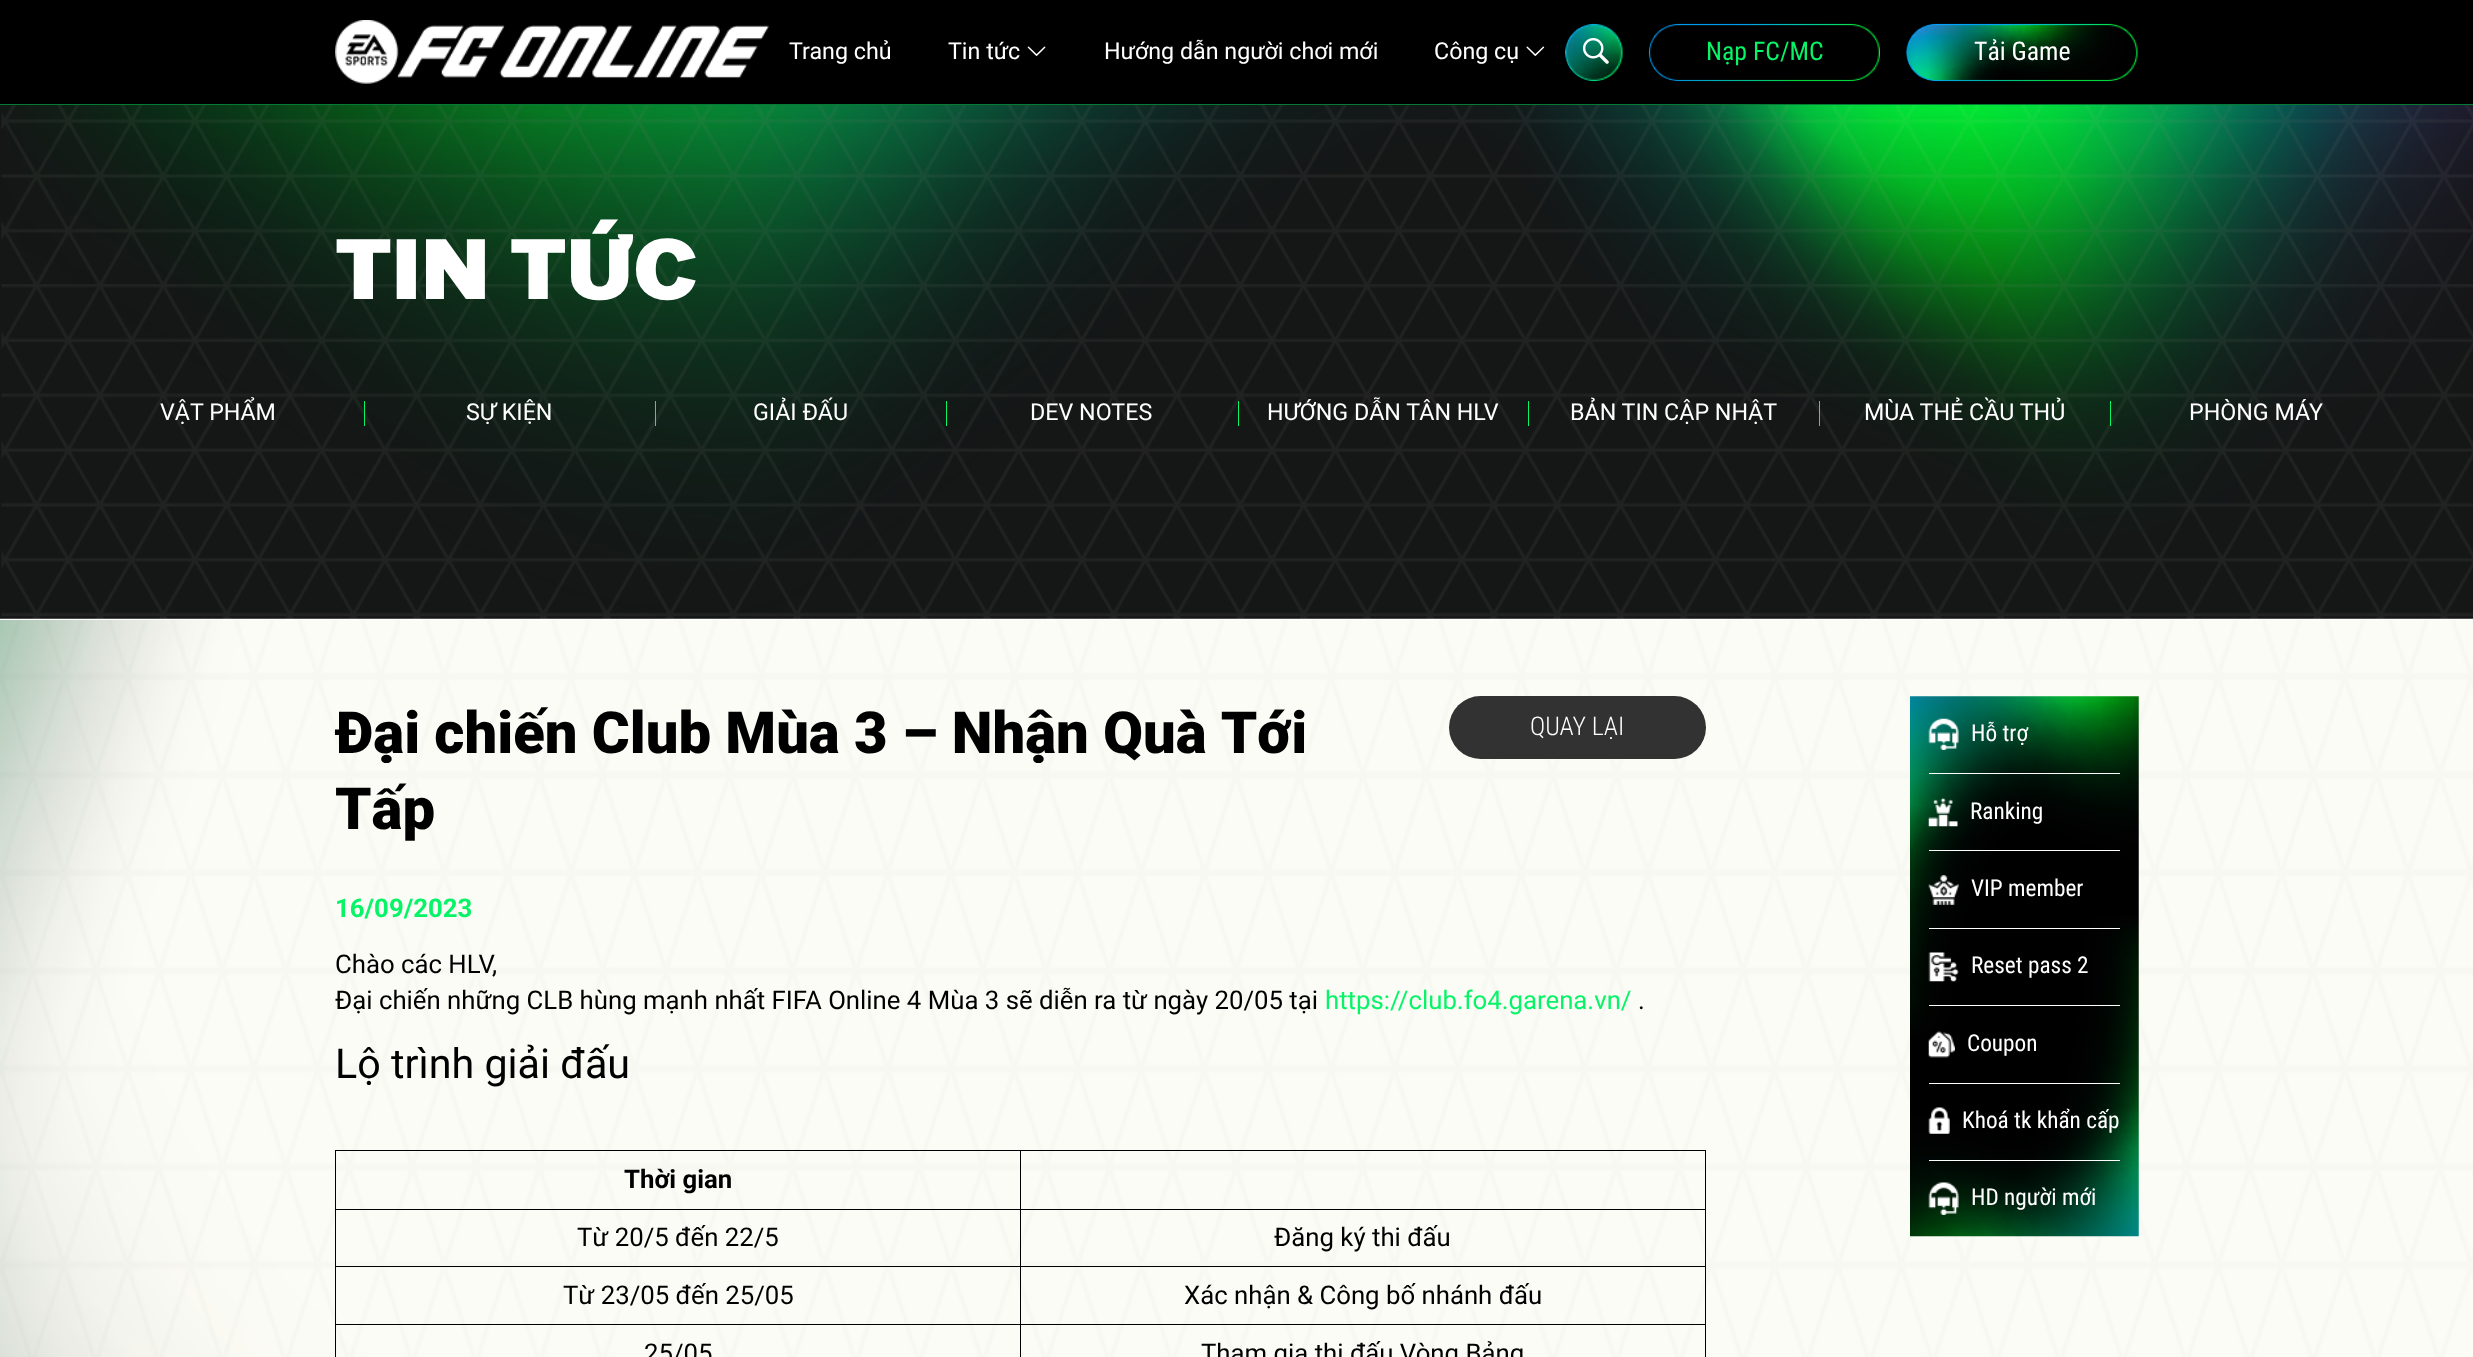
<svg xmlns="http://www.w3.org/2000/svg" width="2473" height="1357">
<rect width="100%" height="100%" fill="#fff"/>
<rect width="2473" height="104" fill="#000"/>
<rect y="104" width="2473" height="1" fill="#047a34"/>
<image x="335" y="20" width="434" height="64" href="media/1.png"/>
<text x="789" y="59" style="font-family:Roboto;font-size:23.25px;fill:#fff">Trang chủ</text>
<text x="948" y="59" style="font-family:Roboto;font-size:23.25px;fill:#fff">Tin tức</text>
<image x="1027" y="46" width="19" height="10" href="media/2.png"/>
<text x="1104" y="59" style="font-family:Roboto;font-size:23.25px;fill:#fff">Hướng dẫn người chơi mới</text>
<text x="1434" y="59" style="font-family:Roboto;font-size:23.25px;fill:#fff">Công cụ</text>
<image x="1526" y="46" width="19" height="10" href="media/3.png"/>
<image x="1565" y="23" width="58" height="59" href="media/4.png"/>
<image x="1582" y="38" width="27" height="26" href="media/5.png"/>
<image x="1648" y="23" width="232" height="59" href="media/6.png"/>
<text x="1706" y="60" style="font-family:Roboto Condensed;font-size:25.75px;fill:#07f468">Nạp FC/MC</text>
<image x="1906" y="23" width="232" height="59" href="media/7.png"/>
<text x="1974" y="60" style="font-family:Roboto Condensed;font-size:25.75px;fill:#fff">Tải Game</text>
<image x="0" y="105" width="2473" height="514" href="media/8.png"/>
<text x="335" y="299" style="font-family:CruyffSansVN;font-size:87.5px;font-weight:900;fill:#fff">TIN TỨC</text>
<text x="160" y="420" style="font-family:Roboto;font-size:23.25px;fill:#fff">VẬT PHẨM</text>
<rect x="364" y="401" width="1" height="25" fill="#07f468"/>
<text x="466" y="420" style="font-family:Roboto;font-size:23.25px;fill:#fff">SỰ KIỆN</text>
<rect x="655" y="401" width="1" height="25" fill="#07f468"/>
<text x="753" y="420" style="font-family:Roboto;font-size:23.25px;fill:#fff">GIẢI ĐẤU</text>
<rect x="946" y="401" width="1" height="25" fill="#07f468"/>
<text x="1030" y="420" style="font-family:Roboto;font-size:23.25px;fill:#fff">DEV NOTES</text>
<rect x="1238" y="401" width="1" height="25" fill="#07f468"/>
<text x="1267" y="420" style="font-family:Roboto;font-size:23.25px;fill:#fff">HƯỚNG DẪN TÂN HLV</text>
<rect x="1528" y="401" width="1" height="25" fill="#07f468"/>
<text x="1570" y="420" style="font-family:Roboto;font-size:23.25px;fill:#fff">BẢN TIN CẬP NHẬT</text>
<rect x="1819" y="401" width="1" height="25" fill="#07f468"/>
<text x="1864" y="420" style="font-family:Roboto;font-size:23.25px;fill:#fff">MÙA THẺ CẦU THỦ</text>
<rect x="2110" y="401" width="1" height="25" fill="#07f468"/>
<text x="2189" y="420" style="font-family:Roboto;font-size:23.25px;fill:#fff">PHÒNG MÁY</text>
<image x="0" y="620" width="2473" height="737" href="media/9.png"/>
<text x="335" y="753" word-spacing="-0.25" style="font-family:Roboto;font-size:58px;font-weight:900;fill:#000">Đại chiến Club Mùa 3 – Nhận Quà Tới</text>
<text x="335" y="829" style="font-family:Roboto;font-size:58px;font-weight:900;fill:#000">Tấp</text>
<rect x="1449" y="696" width="257" height="63" rx="31.5" fill="#323232"/>
<text x="1530" y="735" style="font-family:Roboto Condensed;font-size:25.75px;font-weight:300;fill:#fff">QUAY LẠI</text>
<text x="335" y="917" style="font-family:Roboto;font-size:25.75px;font-weight:bold;fill:#07f468">16/09/2023</text>
<text x="335" y="973" style="font-family:Roboto;font-size:25.75px;fill:#000">Chào các HLV,</text>
<text x="335" y="1009" style="font-family:Roboto;font-size:25.75px;fill:#000">Đại chiến những CLB hùng mạnh nhất FIFA Online 4 Mùa 3 sẽ diễn ra từ ngày 20/05 tại</text>
<text x="1325" y="1009" style="font-family:Roboto;font-size:25.75px;fill:#07f468">https://club.fo4.garena.vn/</text>
<text x="1638" y="1009" style="font-family:Roboto;font-size:25.75px;fill:#000">.</text>
<text x="335" y="1078" style="font-family:Roboto;font-size:41.25px;fill:#000">Lộ trình giải đấu</text>
<rect x="335" y="1150" width="1371" height="1" fill="#000"/>
<rect x="1705" y="1150" width="1" height="207" fill="#000"/>
<rect x="335" y="1150" width="1" height="207" fill="#000"/>
<text x="624" y="1188" style="font-family:Roboto;font-size:25.75px;font-weight:bold;fill:#000">Thời gian</text>
<rect x="1020" y="1209" width="686" height="1" fill="#000"/>
<rect x="1020" y="1266" width="686" height="1" fill="#000"/>
<rect x="1020" y="1324" width="686" height="1" fill="#000"/>
<rect x="1020" y="1324" width="1" height="33" fill="#000"/>
<rect x="335" y="1324" width="686" height="1" fill="#000"/>
<rect x="1020" y="1266" width="1" height="59" fill="#000"/>
<rect x="335" y="1266" width="686" height="1" fill="#000"/>
<rect x="1020" y="1209" width="1" height="59" fill="#000"/>
<rect x="335" y="1209" width="686" height="1" fill="#000"/>
<rect x="1020" y="1150" width="1" height="60" fill="#000"/>
<text x="577" y="1246" style="font-family:Roboto;font-size:25.75px;fill:#000">Từ 20/5 đến 22/5</text>
<text x="1274" y="1246" style="font-family:Roboto;font-size:25.75px;fill:#000">Đăng ký thi đấu</text>
<text x="563" y="1304" style="font-family:Roboto;font-size:25.75px;fill:#000">Từ 23/05 đến 25/05</text>
<text x="1184" y="1304" style="font-family:Roboto;font-size:25.75px;fill:#000">Xác nhận &amp; Công bố nhánh đấu</text>
<text x="644" y="1362" style="font-family:Roboto;font-size:25.75px;fill:#000">25/05</text>
<text x="1201" y="1362" style="font-family:Roboto;font-size:25.75px;fill:#000">Tham gia thi đấu Vòng Bảng</text>
<image x="1910" y="696" width="229" height="541" href="media/10.png"/>
<image x="1928" y="718" width="31" height="32" href="media/11.png"/>
<text x="1971" y="741" style="font-family:Roboto Condensed;font-size:23.25px;fill:#fff">Hỗ trợ</text>
<rect x="1929" y="773" width="191" height="1" fill="#fff"/>
<image x="1928" y="798" width="30" height="29" href="media/12.png"/>
<text x="1970" y="819" style="font-family:Roboto Condensed;font-size:23.25px;fill:#fff">Ranking</text>
<rect x="1929" y="850" width="191" height="1" fill="#fff"/>
<image x="1928" y="875" width="31" height="30" href="media/13.png"/>
<text x="1971" y="896" style="font-family:Roboto Condensed;font-size:23.25px;fill:#fff">VIP member</text>
<rect x="1929" y="928" width="191" height="1" fill="#fff"/>
<image x="1928" y="952" width="31" height="30" href="media/14.png"/>
<text x="1971" y="973" style="font-family:Roboto Condensed;font-size:23.25px;fill:#fff">Reset pass 2</text>
<rect x="1929" y="1005" width="191" height="1" fill="#fff"/>
<image x="1928" y="1031" width="27" height="27" href="media/15.png"/>
<text x="1967" y="1051" style="font-family:Roboto Condensed;font-size:23.25px;fill:#fff">Coupon</text>
<rect x="1929" y="1083" width="191" height="1" fill="#fff"/>
<image x="1928" y="1107" width="22" height="27" href="media/16.png"/>
<text x="1962" y="1128" style="font-family:Roboto Condensed;font-size:23.25px;fill:#fff">Khoá tk khẩn cấp</text>
<rect x="1929" y="1160" width="191" height="1" fill="#fff"/>
<image x="1928" y="1182" width="31" height="33" href="media/17.png"/>
<text x="1971" y="1205" style="font-family:Roboto Condensed;font-size:23.25px;fill:#fff">HD người mới</text>
</svg>
